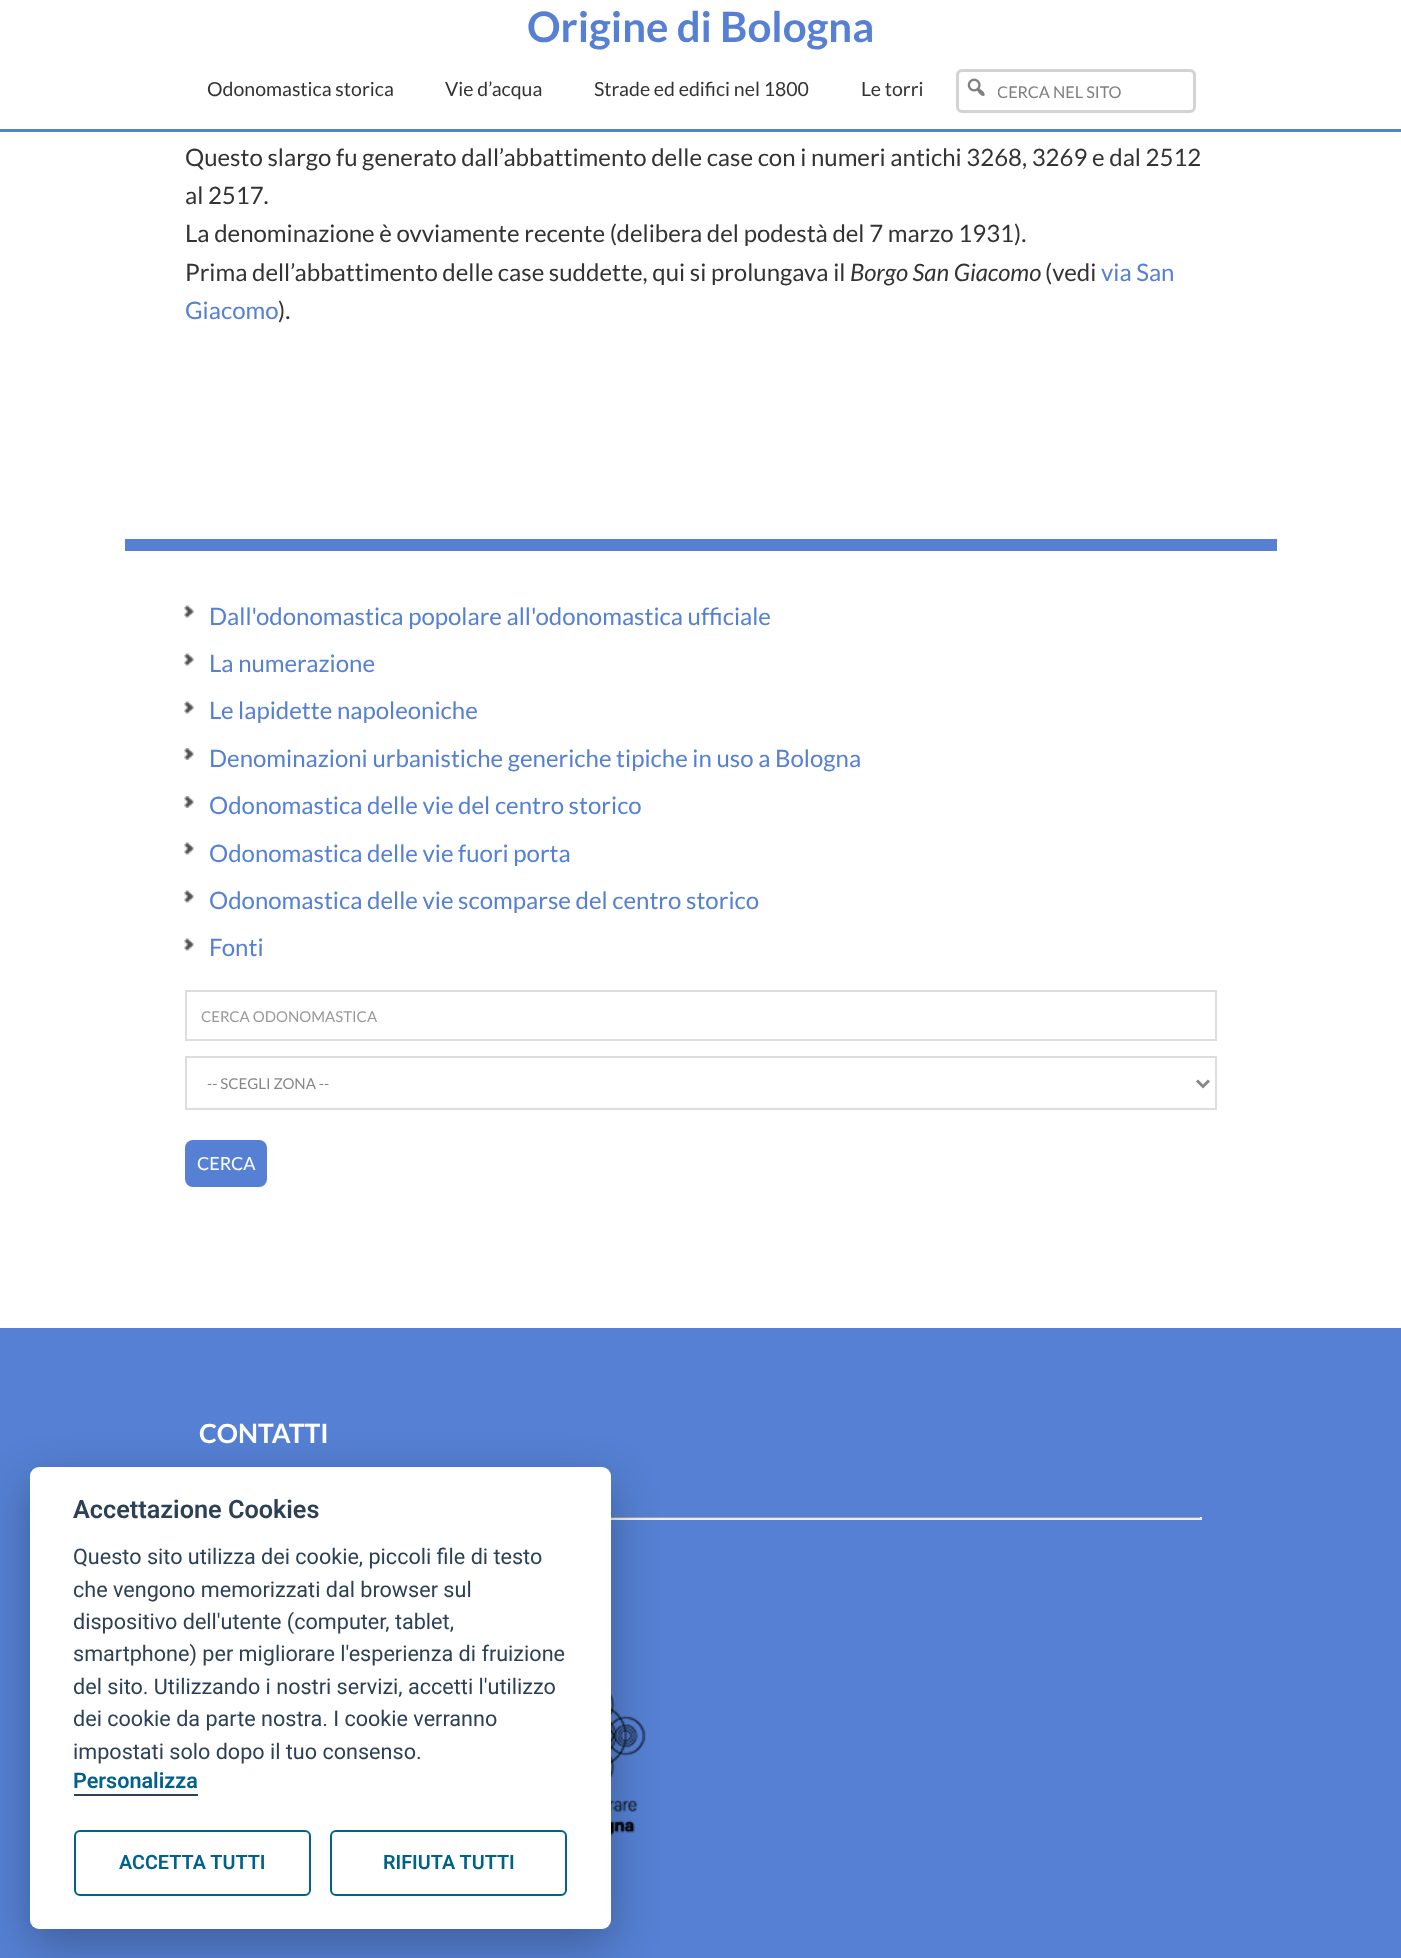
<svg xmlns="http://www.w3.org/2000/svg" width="1401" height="1958">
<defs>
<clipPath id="clip1"><rect x="998" y="81" width="186" height="20"/></clipPath>
</defs>
<rect width="100%" height="100%" fill="#fff"/>
<rect y="129" width="1401" height="3" fill="#5580d3"/>
<text x="527" y="42" style="font-family:Lato;font-size:42px;font-weight:bold;fill:#5580d3">Origine di Bologna</text>
<text x="207" y="96" style="font-family:Lato;font-size:19.5px;fill:#333">Odonomastica storica</text>
<text x="445" y="96" style="font-family:Lato;font-size:19.5px;fill:#333">Vie d’acqua</text>
<text x="594" y="96" style="font-family:Lato;font-size:19.5px;fill:#333">Strade ed edifici nel 1800</text>
<text x="861" y="96" style="font-family:Lato;font-size:19.5px;fill:#333">Le torri</text>
<rect x="957.5" y="70.5" width="237" height="41" rx="4.5" fill="none" stroke="#d3d3d3" stroke-width="3"/>
<image x="967" y="78" width="18" height="18" href="media/1.png"/>
<g clip-path="url(#clip1)">
<text x="997" y="98" style="font-family:Lato;font-size:16.25px;fill:#808080">CERCA NEL SITO</text>
</g>
<text x="185" y="166" style="font-family:Lato;font-size:24px;fill:#333">Questo slargo fu generato dall’abbattimento delle case con i numeri antichi 3268, 3269 e dal 2512</text>
<text x="185" y="204" style="font-family:Lato;font-size:24px;fill:#333">al 2517.</text>
<text x="185" y="242" style="font-family:Lato;font-size:24px;fill:#333">La denominazione è ovviamente recente (delibera del podestà del 7 marzo 1931).</text>
<text x="185" y="281" style="font-family:Lato;font-size:24px;fill:#333">Prima dell’abbattimento delle case suddette, qui si prolungava il</text>
<text x="850" y="281" style="font-family:Lato;font-size:24px;font-style:italic;fill:#333">Borgo San Giacomo</text>
<text x="1045" y="281" style="font-family:Lato;font-size:24px;fill:#333">(vedi</text>
<text x="1101" y="281" style="font-family:Lato;font-size:24px;fill:#5580d3">via San</text>
<text x="185" y="319" style="font-family:Lato;font-size:24px;fill:#5580d3">Giacomo</text>
<text x="278" y="319" style="font-family:Lato;font-size:24px;fill:#333">).</text>
<rect x="125" y="539" width="1152" height="12" fill="#5580d3"/>
<image x="184" y="605" width="10" height="13" href="media/2.png"/>
<text x="209" y="625" style="font-family:Lato;font-size:24px;fill:#5580d3">Dall'odonomastica popolare all'odonomastica ufficiale</text>
<image x="184" y="653" width="10" height="13" href="media/2.png"/>
<text x="209" y="672" style="font-family:Lato;font-size:24px;fill:#5580d3">La numerazione</text>
<image x="184" y="701" width="10" height="13" href="media/2.png"/>
<text x="209" y="719" style="font-family:Lato;font-size:24px;fill:#5580d3">Le lapidette napoleoniche</text>
<image x="184" y="748" width="10" height="12" href="media/3.png"/>
<text x="209" y="767" style="font-family:Lato;font-size:24px;fill:#5580d3">Denominazioni urbanistiche generiche tipiche in uso a Bologna</text>
<image x="184" y="796" width="10" height="12" href="media/3.png"/>
<text x="209" y="814" style="font-family:Lato;font-size:24px;fill:#5580d3">Odonomastica delle vie del centro storico</text>
<image x="184" y="842" width="10" height="13" href="media/2.png"/>
<text x="209" y="862" style="font-family:Lato;font-size:24px;fill:#5580d3">Odonomastica delle vie fuori porta</text>
<image x="184" y="890" width="10" height="13" href="media/2.png"/>
<text x="209" y="909" style="font-family:Lato;font-size:24px;fill:#5580d3">Odonomastica delle vie scomparse del centro storico</text>
<image x="184" y="938" width="10" height="13" href="media/2.png"/>
<text x="209" y="956" style="font-family:Lato;font-size:24px;fill:#5580d3">Fonti</text>
<rect x="186" y="991" width="1030" height="49" fill="none" stroke="#ddd" stroke-width="2"/>
<text x="201" y="1022" style="font-family:Lato;font-size:15px;fill:#999">CERCA ODONOMASTICA</text>
<rect x="186" y="1057" width="1030" height="52" fill="none" stroke="#ddd" stroke-width="2"/>
<path d="M1197 1080.5l6 6l6-6" fill="none" stroke="#888" stroke-width="3"/>
<text x="207" y="1089" style="font-family:Lato;font-size:15px;fill:#888">-- SCEGLI ZONA --</text>
<rect x="185" y="1140" width="82" height="47" rx="8" fill="#5580d3"/>
<text x="197" y="1170" style="font-family:Lato;font-size:18px;fill:#fff">CERCA</text>
<rect y="1328" width="1401" height="630" fill="#5580d3"/>
<text x="199" y="1443" style="font-family:Lato;font-size:26.5px;font-weight:bold;fill:#fff">CONTATTI</text>
<rect x="611" y="1517" width="591" height="1" fill="#9f9f9f"/>
<rect x="1200" y="1517" width="2" height="3" fill="#eee"/>
<rect x="611" y="1518" width="591" height="2" fill="#eee"/>
<image x="611" y="1694" width="35" height="142" href="media/4.png"/>
<rect x="30" y="1482" width="581" height="462" rx="9" fill="#02020347" filter="blur(22.5px)"/>
<rect x="30" y="1467" width="581" height="462" rx="9" fill="#fff"/>
<text x="73" y="1518" style="font-family:Roboto;font-size:25.25px;font-weight:600;fill:#2d4156">Accettazione Cookies</text>
<text x="73" y="1564" style="font-family:Roboto;font-size:21.6px;fill:#2d4156">Questo sito utilizza dei cookie, piccoli file di testo</text>
<text x="73" y="1597" style="font-family:Roboto;font-size:21.6px;fill:#2d4156">che vengono memorizzati dal browser sul</text>
<text x="73" y="1629" style="font-family:Roboto;font-size:21.6px;fill:#2d4156">dispositivo dell'utente (computer, tablet,</text>
<text x="73" y="1661" style="font-family:Roboto;font-size:21.6px;fill:#2d4156">smartphone) per migliorare l'esperienza di fruizione</text>
<text x="73" y="1694" style="font-family:Roboto;font-size:21.6px;fill:#2d4156">del sito. Utilizzando i nostri servizi, accetti l'utilizzo</text>
<text x="73" y="1726" style="font-family:Roboto;font-size:21.6px;fill:#2d4156">dei cookie da parte nostra. I cookie verranno</text>
<text x="73" y="1759" style="font-family:Roboto;font-size:21.6px;fill:#2d4156">impostati solo dopo il tuo consenso.</text>
<rect x="74" y="1794" width="124" height="2" fill="#2d4156"/>
<text x="73" y="1788" style="font-family:Roboto;font-size:21.6px;font-weight:600;fill:#00618b">Personalizza</text>
<rect x="75" y="1831" width="235" height="64" rx="5" fill="none" stroke="#00618b" stroke-width="2"/>
<text x="119" y="1869" style="font-family:Roboto;font-size:19.75px;font-weight:600;fill:#00618b">ACCETTA TUTTI</text>
<rect x="331" y="1831" width="235" height="64" rx="5" fill="none" stroke="#00618b" stroke-width="2"/>
<text x="383" y="1869" style="font-family:Roboto;font-size:19.75px;font-weight:600;fill:#00618b">RIFIUTA TUTTI</text>
</svg>
